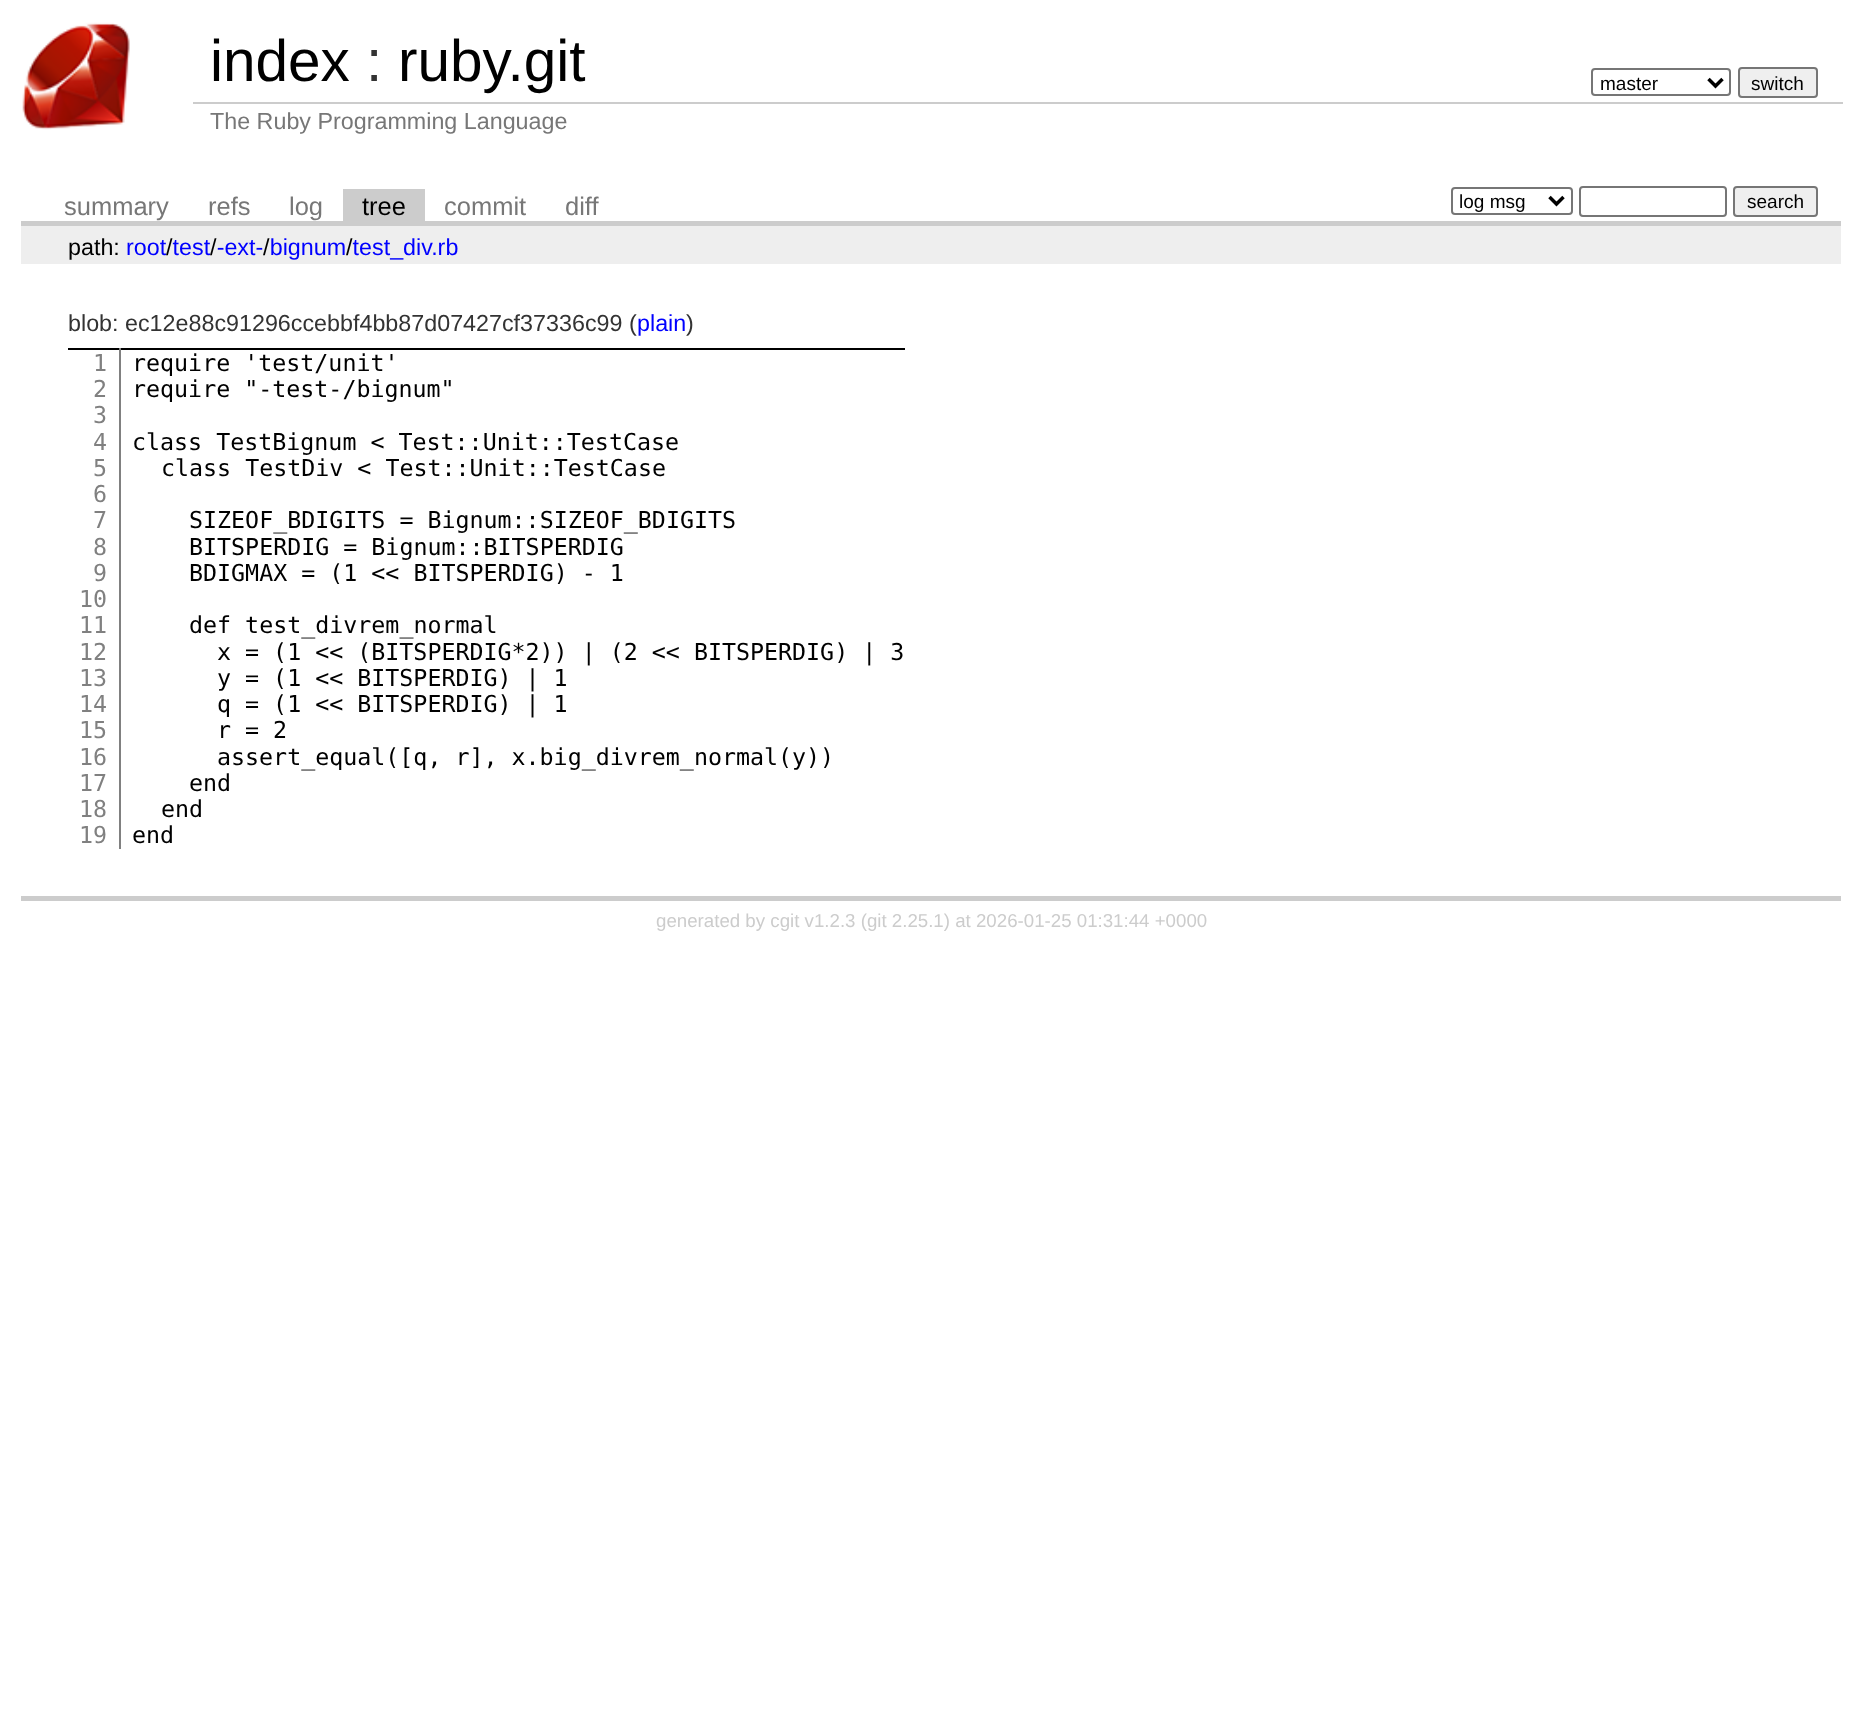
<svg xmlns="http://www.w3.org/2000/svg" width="1862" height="1735">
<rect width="100%" height="100%" fill="#fff"/>
<image x="22" y="22" width="108" height="108" href="media/1.png"/>
<text x="210" y="81" style="font-family:Liberation Sans;font-size:58.5px;fill:#000">index</text>
<text x="366" y="81" style="font-family:Liberation Sans;font-size:58.5px;fill:#333">:</text>
<text x="398" y="81" style="font-family:Liberation Sans;font-size:58.5px;fill:#000">ruby.git</text>
<rect x="1592" y="69" width="138" height="26" rx="3" fill="none" stroke="#767676" stroke-width="2"/>
<path d="M1708.5 79l7 7l7-7" fill="none" stroke="#000" stroke-width="3.5"/>
<text x="1600" y="90" style="font-family:Liberation Sans;font-size:19px;fill:#000">master</text>
<rect x="1739" y="68" width="78" height="29" rx="3" fill="#efefef" stroke="#767676" stroke-width="2"/>
<text x="1751" y="90" style="font-family:Liberation Sans;font-size:19px;fill:#000">switch</text>
<rect x="193" y="102" width="1650" height="2" fill="#ccc"/>
<text x="210" y="129" style="font-family:Liberation Sans;font-size:23.3px;fill:#777">The Ruby Programming Language</text>
<rect x="21" y="221" width="1820" height="5" fill="#ccc"/>
<text x="64" y="215" style="font-family:Liberation Sans;font-size:25.5px;fill:#777">summary</text>
<text x="208" y="215" style="font-family:Liberation Sans;font-size:25.5px;fill:#777">refs</text>
<text x="289" y="215" style="font-family:Liberation Sans;font-size:25.5px;fill:#777">log</text>
<rect x="343" y="189" width="82" height="32" fill="#ccc"/>
<text x="362" y="215" style="font-family:Liberation Sans;font-size:25.5px;fill:#000">tree</text>
<text x="444" y="215" style="font-family:Liberation Sans;font-size:25.5px;fill:#777">commit</text>
<text x="565" y="215" style="font-family:Liberation Sans;font-size:25.5px;fill:#777">diff</text>
<rect x="1452" y="188" width="120" height="26" rx="3" fill="none" stroke="#767676" stroke-width="2"/>
<path d="M1549.5 197l7 7l7-7" fill="none" stroke="#000" stroke-width="3.5"/>
<text x="1459" y="208" style="font-family:Liberation Sans;font-size:19px;fill:#000">log msg</text>
<rect x="1580" y="187" width="146" height="29" rx="3" fill="none" stroke="#767676" stroke-width="2"/>
<rect x="1734" y="187" width="83" height="29" rx="3" fill="#efefef" stroke="#767676" stroke-width="2"/>
<text x="1747" y="208" style="font-family:Liberation Sans;font-size:19px;fill:#000">search</text>
<rect x="21" y="226" width="1820" height="38" fill="#eee"/>
<text x="68" y="255" style="font-family:Liberation Sans;font-size:23.3px;fill:#000">path:</text>
<text x="126" y="255" style="font-family:Liberation Sans;font-size:23.3px;fill:#00f">root test -ext- bignum test_div.rb</text>
<text x="166" y="255" style="font-family:Liberation Sans;font-size:23.3px;fill:#000">/</text>
<text x="210" y="255" style="font-family:Liberation Sans;font-size:23.3px;fill:#000">/</text>
<text x="263" y="255" style="font-family:Liberation Sans;font-size:23.3px;fill:#000">/</text>
<text x="346" y="255" style="font-family:Liberation Sans;font-size:23.3px;fill:#000">/</text>
<rect x="21" y="896" width="1820" height="5" fill="#ccc"/>
<text x="68" y="331" style="font-family:Liberation Sans;font-size:23.3px;fill:#333">blob: ec12e88c91296ccebbf4bb87d07427cf37336c99 (</text>
<text x="637" y="331" style="font-family:Liberation Sans;font-size:23.3px;fill:#00f">plain</text>
<text x="686" y="331" style="font-family:Liberation Sans;font-size:23.3px;fill:#333">)</text>
<rect x="68" y="348" width="837" height="2" fill="#000"/>
<rect x="119" y="348" width="2" height="501" fill="#808080"/>
<text x="93" y="371" style="font-family:DejaVu Sans Mono;font-size:23.3px;fill:#808080">1</text>
<text x="93" y="397" style="font-family:DejaVu Sans Mono;font-size:23.3px;fill:#808080">2</text>
<text x="93" y="423" style="font-family:DejaVu Sans Mono;font-size:23.3px;fill:#808080">3</text>
<text x="93" y="450" style="font-family:DejaVu Sans Mono;font-size:23.3px;fill:#808080">4</text>
<text x="93" y="476" style="font-family:DejaVu Sans Mono;font-size:23.3px;fill:#808080">5</text>
<text x="93" y="502" style="font-family:DejaVu Sans Mono;font-size:23.3px;fill:#808080">6</text>
<text x="93" y="528" style="font-family:DejaVu Sans Mono;font-size:23.3px;fill:#808080">7</text>
<text x="93" y="555" style="font-family:DejaVu Sans Mono;font-size:23.3px;fill:#808080">8</text>
<text x="93" y="581" style="font-family:DejaVu Sans Mono;font-size:23.3px;fill:#808080">9</text>
<text x="79" y="607" style="font-family:DejaVu Sans Mono;font-size:23.3px;fill:#808080">10</text>
<text x="79" y="633" style="font-family:DejaVu Sans Mono;font-size:23.3px;fill:#808080">11</text>
<text x="79" y="660" style="font-family:DejaVu Sans Mono;font-size:23.3px;fill:#808080">12</text>
<text x="79" y="686" style="font-family:DejaVu Sans Mono;font-size:23.3px;fill:#808080">13</text>
<text x="79" y="712" style="font-family:DejaVu Sans Mono;font-size:23.3px;fill:#808080">14</text>
<text x="79" y="738" style="font-family:DejaVu Sans Mono;font-size:23.3px;fill:#808080">15</text>
<text x="79" y="765" style="font-family:DejaVu Sans Mono;font-size:23.3px;fill:#808080">16</text>
<text x="79" y="791" style="font-family:DejaVu Sans Mono;font-size:23.3px;fill:#808080">17</text>
<text x="79" y="817" style="font-family:DejaVu Sans Mono;font-size:23.3px;fill:#808080">18</text>
<text x="79" y="843" style="font-family:DejaVu Sans Mono;font-size:23.3px;fill:#808080">19</text>
<text x="132" y="371" style="font-family:DejaVu Sans Mono;font-size:23.3px;fill:#000">require 'test/unit'</text>
<text x="132" y="397" style="font-family:DejaVu Sans Mono;font-size:23.3px;fill:#000">require "-test-/bignum"</text>
<text x="132" y="450" style="font-family:DejaVu Sans Mono;font-size:23.3px;fill:#000">class TestBignum &lt; Test::Unit::TestCase</text>
<text x="161" y="476" style="font-family:DejaVu Sans Mono;font-size:23.3px;fill:#000">class TestDiv &lt; Test::Unit::TestCase</text>
<text x="189" y="528" style="font-family:DejaVu Sans Mono;font-size:23.3px;fill:#000">SIZEOF_BDIGITS = Bignum::SIZEOF_BDIGITS</text>
<text x="189" y="555" style="font-family:DejaVu Sans Mono;font-size:23.3px;fill:#000">BITSPERDIG = Bignum::BITSPERDIG</text>
<text x="189" y="581" style="font-family:DejaVu Sans Mono;font-size:23.3px;fill:#000">BDIGMAX = (1 &lt;&lt; BITSPERDIG) - 1</text>
<text x="189" y="633" style="font-family:DejaVu Sans Mono;font-size:23.3px;fill:#000">def test_divrem_normal</text>
<text x="217" y="660" style="font-family:DejaVu Sans Mono;font-size:23.3px;fill:#000">x = (1 &lt;&lt; (BITSPERDIG*2)) | (2 &lt;&lt; BITSPERDIG) | 3</text>
<text x="217" y="686" style="font-family:DejaVu Sans Mono;font-size:23.3px;fill:#000">y = (1 &lt;&lt; BITSPERDIG) | 1</text>
<text x="217" y="712" style="font-family:DejaVu Sans Mono;font-size:23.3px;fill:#000">q = (1 &lt;&lt; BITSPERDIG) | 1</text>
<text x="217" y="738" style="font-family:DejaVu Sans Mono;font-size:23.3px;fill:#000">r = 2</text>
<text x="217" y="765" style="font-family:DejaVu Sans Mono;font-size:23.3px;fill:#000">assert_equal([q, r], x.big_divrem_normal(y))</text>
<text x="189" y="791" style="font-family:DejaVu Sans Mono;font-size:23.3px;fill:#000">end</text>
<text x="161" y="817" style="font-family:DejaVu Sans Mono;font-size:23.3px;fill:#000">end</text>
<text x="132" y="843" style="font-family:DejaVu Sans Mono;font-size:23.3px;fill:#000">end</text>
<text x="656" y="927" style="font-family:Liberation Sans;font-size:18.7px;fill:#ccc">generated by cgit v1.2.3 (git 2.25.1) at 2026-01-25 01:31:44 +0000</text>
</svg>
